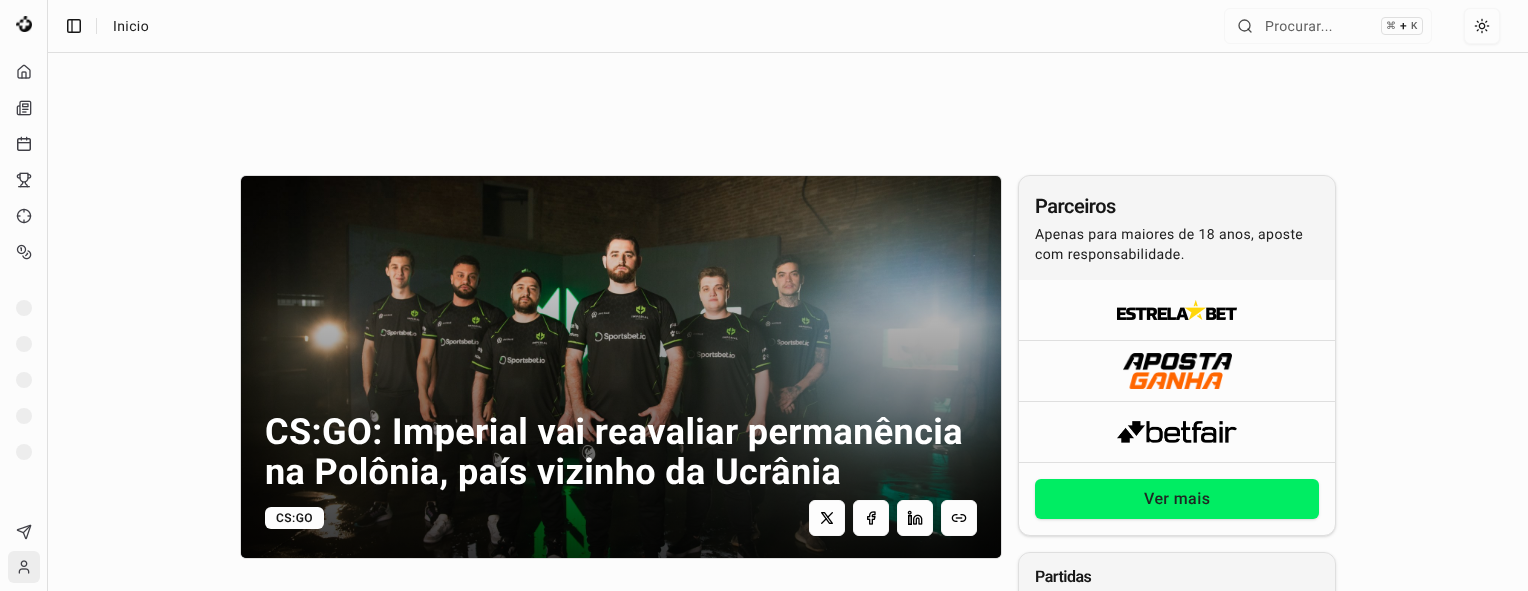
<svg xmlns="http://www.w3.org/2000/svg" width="1528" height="591">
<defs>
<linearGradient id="g1" gradientUnits="userSpaceOnUse" x1="621" y1="560" x2="621" y2="176"><stop offset="0" stop-color="#000" stop-opacity="0.8"/><stop offset="1" stop-color="#000" stop-opacity="0"/></linearGradient>
</defs>
<rect width="100%" height="100%" fill="#fcfcfc"/>
<rect x="47" width="1" height="591" fill="#dfdfdf"/>
<image x="16" y="16" width="16" height="16" href="media/1.png"/>
<image x="17" y="64" width="14" height="15" href="media/2.png"/>
<image x="16" y="100" width="16" height="16" href="media/3.png"/>
<image x="17" y="136" width="14" height="15" href="media/4.png"/>
<image x="16" y="172" width="16" height="16" href="media/5.png"/>
<image x="16" y="208" width="16" height="16" href="media/6.png"/>
<image x="16" y="244" width="16" height="16" href="media/7.png"/>
<circle cx="24" cy="308" r="8" fill="#ededed"/>
<circle cx="24" cy="344" r="8" fill="#ededed"/>
<circle cx="24" cy="380" r="8" fill="#ededed"/>
<circle cx="24" cy="416" r="8" fill="#ededed"/>
<circle cx="24" cy="452" r="8" fill="#ededed"/>
<image x="16" y="524" width="16" height="16" href="media/8.png"/>
<rect x="8" y="551" width="32" height="32" rx="6" fill="#ededed"/>
<image x="18" y="560" width="12" height="14" href="media/9.png"/>
<rect x="48" y="52" width="1480" height="1" fill="#dfdfdf"/>
<rect x="67.75" y="19.75" width="12.5" height="12.5" rx="1.25" fill="none" stroke="#171717" stroke-width="1.5"/>
<path d="M72 20v12" fill="none" stroke="#171717" stroke-width="1.3" stroke-linecap="round" stroke-linejoin="round"/>
<rect x="96" y="18" width="1" height="16" fill="#dfdfdf"/>
<text x="113" y="31" style="font-family:Roboto;font-size:14px;letter-spacing:0.4px;fill:#202020">Inicio</text>
<rect x="1224.5" y="8.5" width="207" height="35" rx="5.5" fill="none" stroke="#f6f6f6"/>
<circle cx="1244.5" cy="25.5" r="5.5" fill="none" stroke="#4c4c4c" stroke-width="1.3"/>
<path d="M1251 32l-3-3" fill="none" stroke="#202020cc" stroke-width="1.3" stroke-linecap="round" stroke-linejoin="round"/>
<text x="1265" y="31" style="font-family:Roboto;font-size:14px;letter-spacing:0.4px;fill:#626262">Procurar...</text>
<rect x="1381.5" y="17.5" width="41" height="17" rx="3.5" fill="none" stroke="#dfdfdf"/>
<text x="1386" y="29" style="font-family:DejaVu Sans;font-size:10px;letter-spacing:0.4px;fill:#626262">⌘</text>
<text x="1400" y="30" style="font-family:Roboto;font-size:12px;font-weight:500;letter-spacing:0.4px;fill:#202020">+</text>
<text x="1411" y="29" style="font-family:Roboto;font-size:10px;font-weight:500;letter-spacing:0.4px;fill:#626262">K</text>
<rect x="1464" y="9" width="36" height="36" rx="6" fill="#0000000d" filter="blur(1px)"/>
<rect x="1464.5" y="8.5" width="35" height="35" rx="5.5" fill="#fcfcfc" stroke="#f6f6f6"/>
<image x="1474" y="18" width="16" height="16" href="media/10.png"/>
<rect x="240.5" y="175.5" width="761" height="383" rx="5.5" fill="none" stroke="#dfdfdf"/>
<image x="241" y="176" width="760" height="382" href="media/11.png"/>
<rect x="241" y="176" width="760" height="382" rx="5" fill="url(#g1)"/>
<text x="265" y="444" style="font-family:Roboto;font-size:36px;font-weight:bold;letter-spacing:0.4px;fill:#fff">CS:GO: Imperial vai reavaliar permanência</text>
<text x="265" y="484" style="font-family:Roboto;font-size:36px;font-weight:bold;letter-spacing:0.4px;fill:#fff">na Polônia, país vizinho da Ucrânia</text>
<rect x="265" y="507" width="59" height="22" rx="6" fill="#fdfdfd"/>
<text x="276" y="522" style="font-family:Roboto;font-size:12px;font-weight:600;letter-spacing:0.4px;fill:#171717">CS:GO</text>
<rect x="809.5" y="500.5" width="35" height="35" rx="5.5" fill="#fdfdfd" stroke="#f6f6f6"/>
<image x="821" y="512" width="12" height="12" href="media/12.png"/>
<rect x="853.5" y="500.5" width="35" height="35" rx="5.5" fill="#fdfdfd" stroke="#f6f6f6"/>
<image x="867" y="511" width="9" height="14" href="media/13.png"/>
<rect x="897.5" y="500.5" width="35" height="35" rx="5.5" fill="#fdfdfd" stroke="#f6f6f6"/>
<image x="907" y="510" width="16" height="15" href="media/14.png"/>
<rect x="941.5" y="500.5" width="35" height="35" rx="5.5" fill="#fdfdfd" stroke="#f6f6f6"/>
<image x="951" y="514" width="16" height="8" href="media/15.png"/>
<rect x="1019" y="177" width="316" height="359" rx="11" fill="#0000001a" filter="blur(1px)"/>
<rect x="1018" y="176" width="318" height="361" rx="12" fill="#0000001a" filter="blur(1.5px)"/>
<rect x="1018.5" y="175.5" width="317" height="360" rx="11.5" fill="#fcfcfc" stroke="#dfdfdf"/>
<path d="M1030 176h294c6 0 11 5 11 11v93h-316v-93c0-6 5-11 11-11z" fill="#ededed80"/>
<text x="1035" y="213" style="font-family:Roboto;font-size:20px;font-weight:600;letter-spacing:-0.5px;fill:#171717">Parceiros</text>
<text x="1035" y="239" style="font-family:Roboto;font-size:14px;letter-spacing:0.4px;fill:#202020">Apenas para maiores de 18 anos, aposte</text>
<text x="1035" y="259" style="font-family:Roboto;font-size:14px;letter-spacing:0.4px;fill:#202020">com responsabilidade.</text>
<image x="1117" y="300" width="120" height="20" href="media/16.png"/>
<rect x="1019" y="340" width="316" height="1" fill="#dfdfdf"/>
<image x="1123" y="353" width="109" height="36" href="media/17.png"/>
<rect x="1019" y="401" width="316" height="1" fill="#dfdfdf"/>
<image x="1117" y="421" width="120" height="22" href="media/18.png"/>
<rect x="1019" y="462" width="316" height="1" fill="#dfdfdf"/>
<rect x="1036" y="481" width="282" height="38" rx="5" fill="#0000001a" filter="blur(1px)"/>
<rect x="1035" y="480" width="284" height="40" rx="6" fill="#0000001a" filter="blur(1.5px)"/>
<rect x="1035" y="479" width="284" height="40" rx="6" fill="#00ed63"/>
<text x="1144" y="504" style="font-family:Roboto;font-size:16px;font-weight:500;letter-spacing:0.4px;fill:#1e2723">Ver mais</text>
<rect x="1018" y="553" width="318" height="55" rx="12" fill="#0000001a" filter="blur(1.5px)"/>
<rect x="1018.5" y="552.5" width="317" height="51" rx="11.5" fill="#fcfcfc" stroke="#dfdfdf"/>
<path d="M1030 553h294c6 0 11 5 11 11v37h-316v-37c0-6 5-11 11-11z" fill="#ededed80"/>
<text x="1035" y="582" style="font-family:Roboto;font-size:16px;font-weight:600;letter-spacing:-0.5px;fill:#171717">Partidas</text>
</svg>
